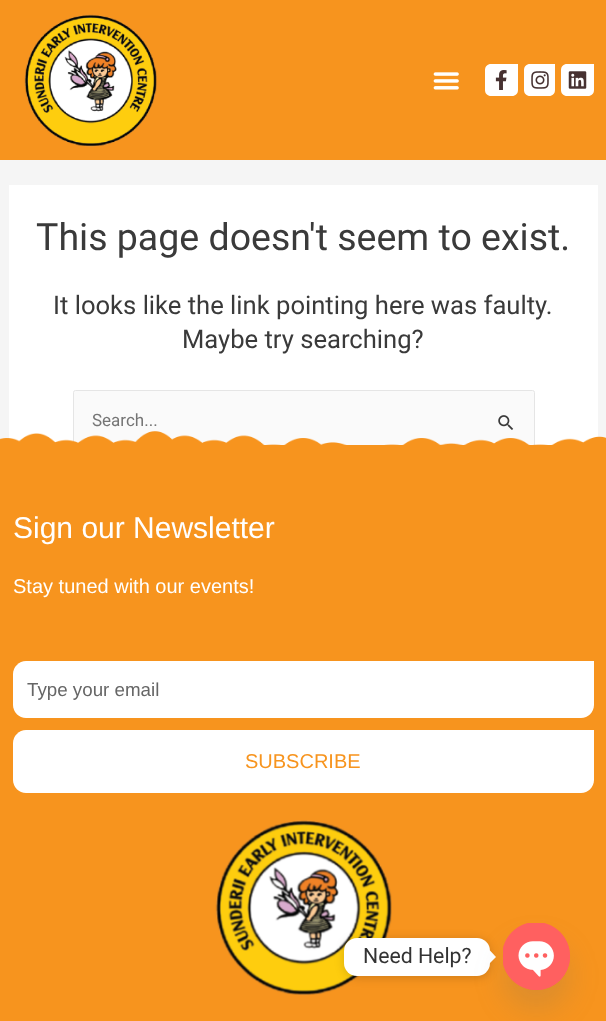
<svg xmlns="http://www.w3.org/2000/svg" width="606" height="1021">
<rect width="100%" height="100%" fill="#f5f5f5"/>
<rect width="606" height="160" fill="#f7941e"/>
<image x="24" y="14" width="133" height="133" href="media/1.png"/>
<image x="433" y="72" width="26" height="18" href="media/2.png"/>
<path d="M491 64h27v26c0 3.5-2.5 6-6 6h-21c-3.5 0-6-2.5-6-6v-20c0-3.5 2.5-6 6-6z" fill="#fff"/>
<image x="495" y="70" width="12" height="20" href="media/3.png"/>
<path d="M530 64h25v26c0 3.5-2.5 6-6 6h-19c-3.5 0-6-2.5-6-6v-20c0-3.5 2.5-6 6-6z" fill="#fff"/>
<image x="531" y="71" width="18" height="18" href="media/4.png"/>
<path d="M567 64h27v26c0 3.5-2.5 6-6 6h-21c-3.5 0-6-2.5-6-6v-20c0-3.5 2.5-6 6-6z" fill="#fff"/>
<image x="568" y="71" width="19" height="18" href="media/5.png"/>
<rect x="9" y="185" width="589" height="260" fill="#fff"/>
<text x="36" y="250" style="font-family:Roboto;font-size:37.5px;fill:#3a3a3a">This page doesn't seem to exist.</text>
<text x="53" y="314" style="font-family:Roboto;font-size:25.6px;fill:#3a3a3a">It looks like the link pointing here was faulty.</text>
<text x="182" y="348" style="font-family:Roboto;font-size:25.6px;fill:#3a3a3a">Maybe try searching?</text>
<rect x="73.5" y="390.5" width="461" height="60" rx="2" fill="#fafafa" stroke="#e5e5e5"/>
<text x="92" y="426" style="font-family:Roboto;font-size:17px;fill:#757575">Search...</text>
<image x="498" y="415" width="16" height="15" href="media/6.png"/>
<image x="0" y="431" width="606" height="14" href="media/7.png"/>
<rect y="445" width="606" height="576" fill="#f7941e"/>
<text x="13" y="538" style="font-family:Liberation Sans;font-size:30px;fill:#fff">Sign our Newsletter</text>
<text x="13" y="593" style="font-family:Liberation Sans;font-size:20px;fill:#fff">Stay tuned with our events!</text>
<path d="M26 661h568v44c0 7-6 13-13 13h-555c-7 0-13-6-13-13v-31c0-7 6-13 13-13z" fill="#fff"/>
<text x="27" y="696" style="font-family:Liberation Sans;font-size:18.75px;fill:#666">Type your email</text>
<path d="M26 730h568v50c0 7-6 13-13 13h-555c-7 0-13-6-13-13v-37c0-7 6-13 13-13z" fill="#fff"/>
<text x="245" y="768" style="font-family:Liberation Sans;font-size:20px;fill:#f7941e">SUBSCRIBE</text>
<image x="215" y="820" width="177" height="176" href="media/8.png"/>
<rect x="344" y="939" width="146" height="39" rx="13" fill="#00000026" filter="blur(5px)"/>
<rect x="344" y="938" width="146" height="38" rx="13" fill="#fff"/>
<text x="363" y="963" style="font-family:Roboto;font-size:21.25px;fill:#333">Need Help?</text>
<path d="M490 963v-12.5l6 6.5z" fill="#fff"/>
<rect x="503" y="943" width="67" height="67" rx="33.5" fill="#49687e29" filter="blur(15px)"/>
<circle cx="536.5" cy="956.5" r="33.5" fill="#ff6060"/>
<image x="503" y="923" width="67" height="67" href="media/9.png"/>
</svg>
